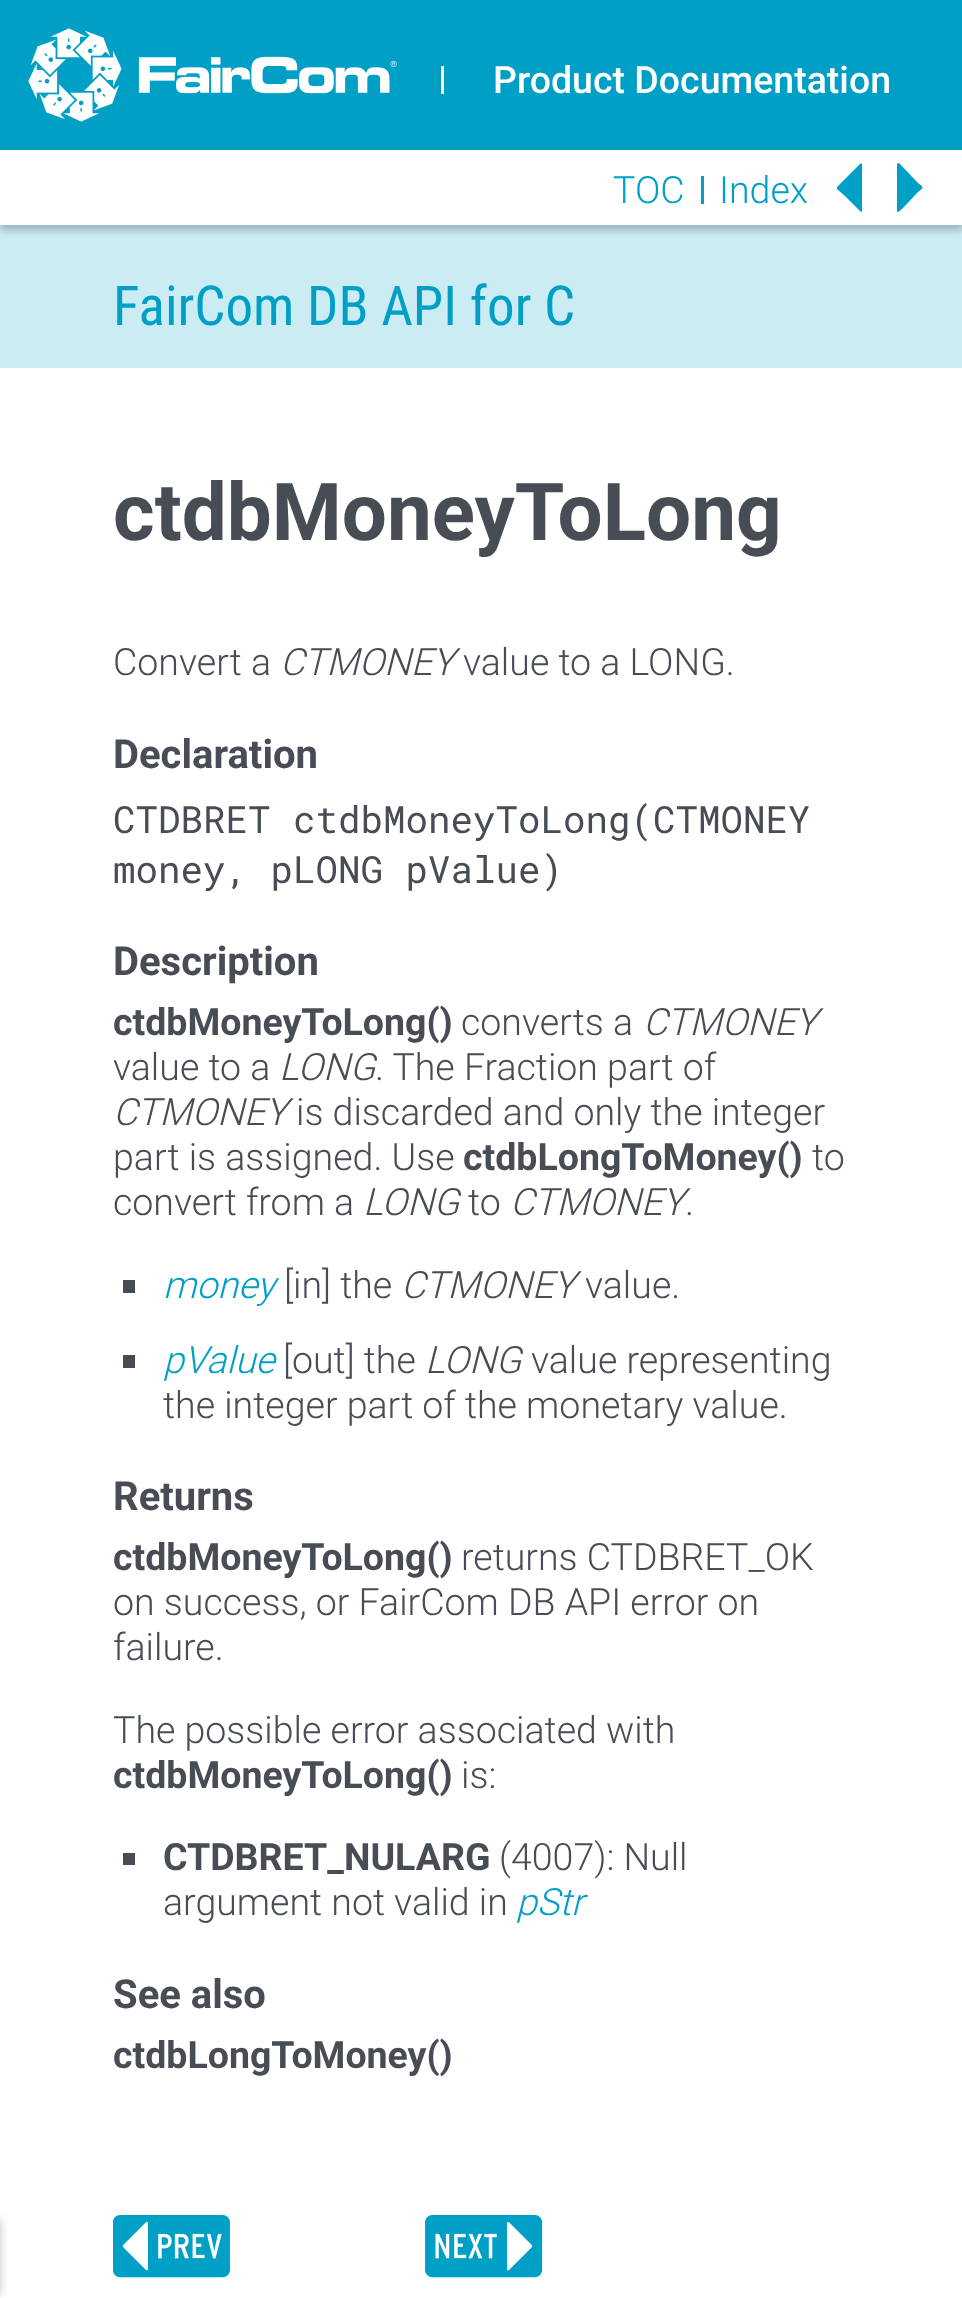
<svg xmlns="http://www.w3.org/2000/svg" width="962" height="2298">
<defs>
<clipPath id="clip1"><path d="M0 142h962v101h-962zm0 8h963v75h-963z" clip-rule="evenodd"/></clipPath>
</defs>
<rect width="100%" height="100%" fill="#fff"/>
<rect width="962" height="150" fill="#00a0c6"/>
<image x="28" y="28" width="369" height="94" href="media/1.png"/>
<rect x="441" y="66" width="3" height="28" fill="#fff"/>
<text x="493" y="93" style="font-family:Roboto;font-size:37.5px;font-weight:500;fill:#fff">Product Documentation</text>
<rect y="225" width="962" height="143" fill="#ccecf4"/>
<g clip-path="url(#clip1)">
<rect y="155" width="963" height="75" fill="#00000040" filter="blur(4px)"/>
</g>
<text x="613" y="203" style="font-family:Roboto;font-size:37.5px;font-weight:300;fill:#00a0c6">TOC</text>
<rect x="701" y="176" width="3" height="28" fill="#00a0c6"/>
<text x="719" y="203" style="font-family:Roboto;font-size:37.5px;font-weight:300;fill:#00a0c6">Index</text>
<path d="M860 164l-19 19c-7 7-5 4 4 13l16 16c1 0 1-1 1-2v-46c0-1-1-1-2 0z" fill="#00a0c6"/>
<path d="M897 164v39c0 11-1 11 6 5l15-16c6-5 6-4 0-9l-19-20c-1 0-2 1-2 1z" fill="#00a0c6"/>
<text x="113" y="325" style="font-family:Roboto Condensed;font-size:55px;fill:#00a0c6">FairCom DB API for C</text>
<text x="113" y="540" style="font-family:Roboto;font-size:80px;font-weight:bold;fill:#474c55">ctdbMoneyToLong</text>
<text x="113" y="675" style="font-family:Roboto;font-size:37.5px;font-weight:300;fill:#474c55">Convert a</text>
<text x="280" y="675" style="font-family:Roboto;font-size:37.5px;font-weight:300;font-style:italic;fill:#474c55">CTMONEY</text>
<text x="463" y="675" style="font-family:Roboto;font-size:37.5px;font-weight:300;fill:#474c55">value to a LONG.</text>
<text x="113" y="768" style="font-family:Roboto;font-size:40px;font-weight:bold;fill:#474c55">Declaration</text>
<text x="113" y="833" style="font-family:Roboto Mono;font-size:37.5px;fill:#474c55">CTDBRET ctdbMoneyToLong(CTMONEY</text>
<text x="113" y="883" style="font-family:Roboto Mono;font-size:37.5px;fill:#474c55">money, pLONG pValue)</text>
<text x="113" y="975" style="font-family:Roboto;font-size:40px;font-weight:bold;fill:#474c55">Description</text>
<text x="113" y="1035" style="font-family:Roboto;font-size:37.5px;font-weight:bold;fill:#474c55">ctdbMoneyToLong()</text>
<text x="461" y="1035" style="font-family:Roboto;font-size:37.5px;font-weight:300;fill:#474c55">converts a</text>
<text x="643" y="1035" style="font-family:Roboto;font-size:37.5px;font-weight:300;font-style:italic;fill:#474c55">CTMONEY</text>
<text x="113" y="1080" style="font-family:Roboto;font-size:37.5px;font-weight:300;fill:#474c55">value to a</text>
<text x="279" y="1080" style="font-family:Roboto;font-size:37.5px;font-weight:300;font-style:italic;fill:#474c55">LONG</text>
<text x="375" y="1080" style="font-family:Roboto;font-size:37.5px;font-weight:300;fill:#474c55">. The Fraction part of</text>
<text x="113" y="1125" style="font-family:Roboto;font-size:37.5px;font-weight:300;font-style:italic;fill:#474c55">CTMONEY</text>
<text x="296" y="1125" style="font-family:Roboto;font-size:37.5px;font-weight:300;fill:#474c55">is discarded and only the integer</text>
<text x="113" y="1170" style="font-family:Roboto;font-size:37.5px;font-weight:300;fill:#474c55">part is assigned. Use</text>
<text x="463" y="1170" style="font-family:Roboto;font-size:37.5px;font-weight:bold;fill:#474c55">ctdbLongToMoney()</text>
<text x="812" y="1170" style="font-family:Roboto;font-size:37.5px;font-weight:300;fill:#474c55">to</text>
<text x="113" y="1215" style="font-family:Roboto;font-size:37.5px;font-weight:300;fill:#474c55">convert from a</text>
<text x="363" y="1215" style="font-family:Roboto;font-size:37.5px;font-weight:300;font-style:italic;fill:#474c55">LONG</text>
<text x="468" y="1215" style="font-family:Roboto;font-size:37.5px;font-weight:300;fill:#474c55">to</text>
<text x="510" y="1215" style="font-family:Roboto;font-size:37.5px;font-weight:300;font-style:italic;fill:#474c55">CTMONEY</text>
<text x="685" y="1215" style="font-family:Roboto;font-size:37.5px;font-weight:300;fill:#474c55">.</text>
<rect x="123" y="1280" width="12" height="13" fill="#474c55"/>
<text x="163" y="1298" style="font-family:Roboto;font-size:37.5px;font-weight:300;font-style:italic;fill:#00a0c6">money</text>
<text x="284" y="1298" style="font-family:Roboto;font-size:37.5px;font-weight:300;fill:#474c55">[in] the</text>
<text x="401" y="1298" style="font-family:Roboto;font-size:37.5px;font-weight:300;font-style:italic;fill:#474c55">CTMONEY</text>
<text x="585" y="1298" style="font-family:Roboto;font-size:37.5px;font-weight:300;fill:#474c55">value.</text>
<rect x="123" y="1355" width="12" height="13" fill="#474c55"/>
<text x="163" y="1373" style="font-family:Roboto;font-size:37.5px;font-weight:300;font-style:italic;fill:#00a0c6">pValue</text>
<text x="283" y="1373" style="font-family:Roboto;font-size:37.5px;font-weight:300;fill:#474c55">[out] the</text>
<text x="425" y="1373" style="font-family:Roboto;font-size:37.5px;font-weight:300;font-style:italic;fill:#474c55">LONG</text>
<text x="531" y="1373" style="font-family:Roboto;font-size:37.5px;font-weight:300;fill:#474c55">value representing</text>
<text x="163" y="1418" style="font-family:Roboto;font-size:37.5px;font-weight:300;fill:#474c55">the integer part of the monetary value.</text>
<text x="113" y="1510" style="font-family:Roboto;font-size:40px;font-weight:bold;fill:#474c55">Returns</text>
<text x="113" y="1570" style="font-family:Roboto;font-size:37.5px;font-weight:bold;fill:#474c55">ctdbMoneyToLong()</text>
<text x="461" y="1570" style="font-family:Roboto;font-size:37.5px;font-weight:300;fill:#474c55">returns CTDBRET_OK</text>
<text x="113" y="1615" style="font-family:Roboto;font-size:37.5px;font-weight:300;fill:#474c55">on success, or FairCom DB API error on</text>
<text x="113" y="1660" style="font-family:Roboto;font-size:37.5px;font-weight:300;fill:#474c55">failure.</text>
<text x="113" y="1743" style="font-family:Roboto;font-size:37.5px;font-weight:300;fill:#474c55">The possible error associated with</text>
<text x="113" y="1788" style="font-family:Roboto;font-size:37.5px;font-weight:bold;fill:#474c55">ctdbMoneyToLong()</text>
<text x="461" y="1788" style="font-family:Roboto;font-size:37.5px;font-weight:300;fill:#474c55">is:</text>
<rect x="123" y="1853" width="12" height="12" fill="#474c55"/>
<text x="163" y="1870" style="font-family:Roboto;font-size:37.5px;font-weight:bold;fill:#474c55">CTDBRET_NULARG</text>
<text x="499" y="1870" style="font-family:Roboto;font-size:37.5px;font-weight:300;fill:#474c55">(4007): Null</text>
<text x="163" y="1915" style="font-family:Roboto;font-size:37.5px;font-weight:300;fill:#474c55">argument not valid in</text>
<text x="516" y="1915" style="font-family:Roboto;font-size:37.5px;font-weight:300;font-style:italic;fill:#00a0c6">pStr</text>
<text x="113" y="2008" style="font-family:Roboto;font-size:40px;font-weight:bold;fill:#474c55">See also</text>
<text x="113" y="2068" style="font-family:Roboto;font-size:37.5px;font-weight:bold;fill:#474c55">ctdbLongToMoney()</text>
<image x="113" y="2215" width="117" height="63" href="media/2.png"/>
<image x="425" y="2215" width="118" height="63" href="media/3.png"/>
<rect x="-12" y="2220" width="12" height="75" fill="#00000040" filter="blur(4px)"/>
</svg>
